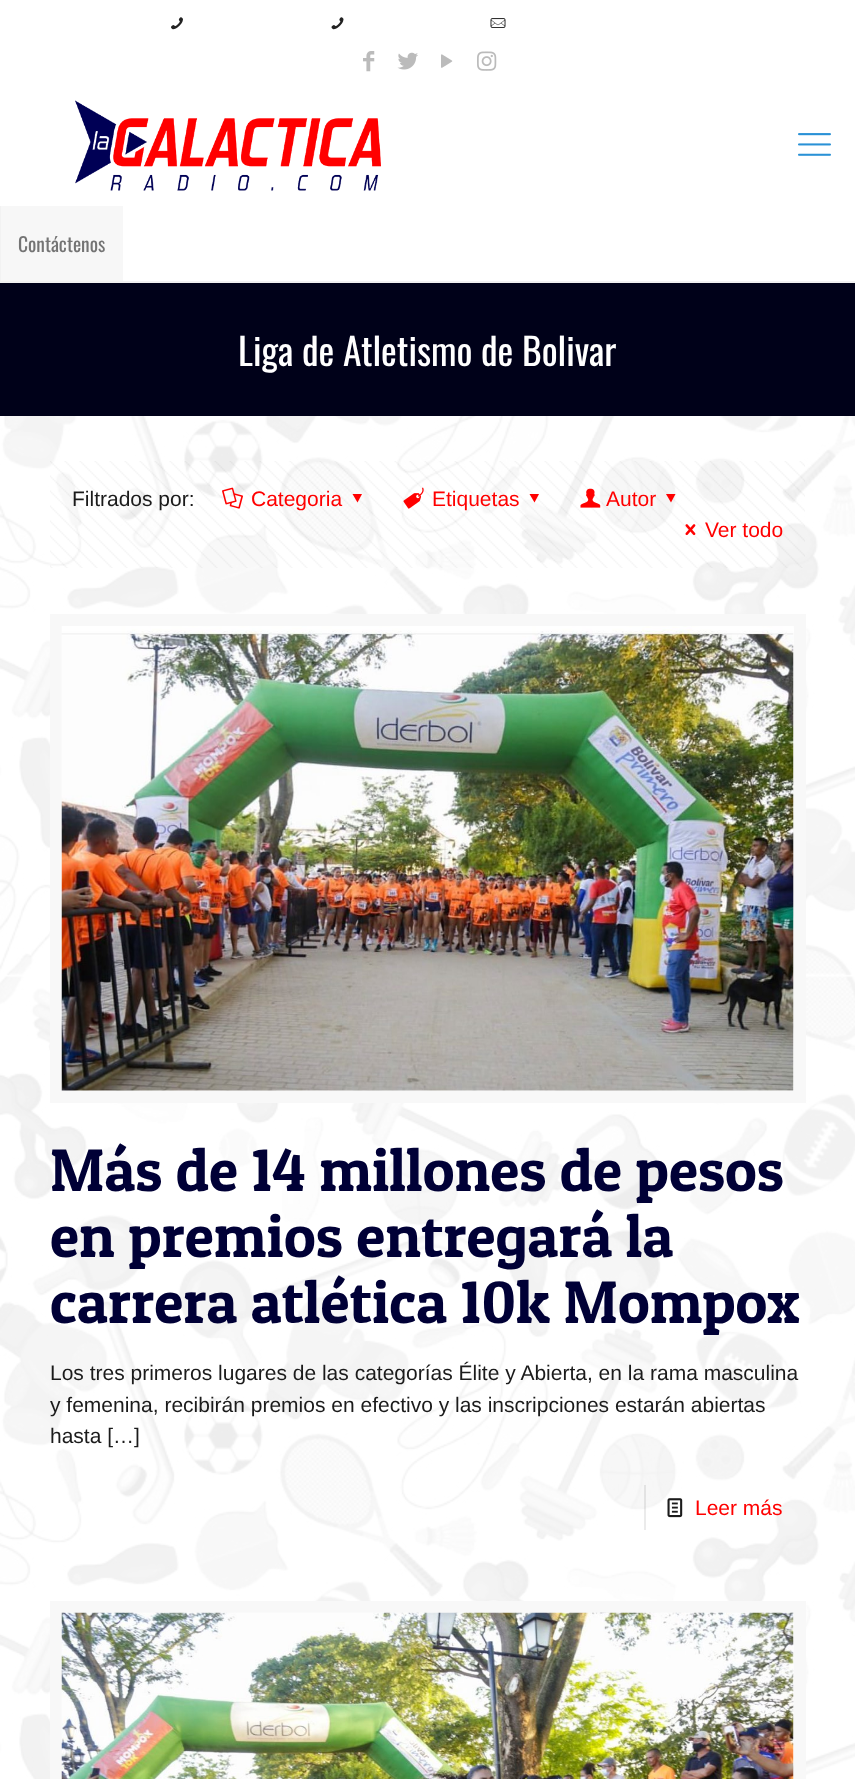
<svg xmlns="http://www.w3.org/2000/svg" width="855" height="1779">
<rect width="100%" height="100%" fill="#fff"/>
<image x="0" y="416" width="855" height="1363" href="media/1.png"/>
<rect y="283" width="855" height="133" fill="#000119"/>
<image x="171" y="17" width="12" height="13" href="media/2.png"/>
<image x="331" y="17" width="13" height="13" href="media/3.png"/>
<image x="490" y="18" width="16" height="10" href="media/4.png"/>
<image x="363" y="51" width="12" height="21" href="media/5.png"/>
<image x="397" y="52" width="21" height="18" href="media/6.png"/>
<image x="441" y="54" width="12" height="14" href="media/7.png"/>
<image x="477" y="51" width="20" height="20" href="media/8.png"/>
<rect y="281" width="855" height="2" fill="#f2f2f2"/>
<image x="75" y="100" width="306" height="91" href="media/9.png"/>
<image x="798" y="133" width="33" height="23" href="media/10.png"/>
<rect x="1" y="206" width="122" height="75" fill="#f7f7f7"/>
<rect y="206" width="1" height="75" fill="#f2f2f2"/>
<text x="18" y="252" style="font-family:Oswald;font-size:19.5px;fill:#747474">Contáctenos</text>
<text x="238" y="366" style="font-family:Oswald;font-size:37.5px;fill:#fff">Liga de Atletismo de Bolivar</text>
<image x="50" y="461" width="755" height="107" href="media/11.png"/>
<text x="72" y="506" style="font-family:Liberation Sans;font-size:21px;fill:#1b1b1b">Filtrados por:</text>
<image x="222" y="487" width="21" height="22" href="media/12.png"/>
<text x="251" y="506" style="font-family:Liberation Sans;font-size:21px;fill:#f00">Categoria</text>
<path d="M362 494l-4.5 8.5l-5-8.5z" fill="#f00"/>
<image x="403" y="487" width="21" height="22" href="media/13.png"/>
<text x="432" y="506" style="font-family:Liberation Sans;font-size:21px;fill:#f00">Etiquetas</text>
<path d="M539 494l-4.5 8.5l-5-8.5z" fill="#f00"/>
<image x="580" y="488" width="21" height="20" href="media/14.png"/>
<text x="606" y="506" style="font-family:Liberation Sans;font-size:21px;fill:#f00">Autor</text>
<path d="M675.5 494l-4.5 8.5l-5-8.5z" fill="#f00"/>
<image x="685" y="524" width="11" height="12" href="media/15.png"/>
<text x="705" y="537" style="font-family:Liberation Sans;font-size:21px;fill:#f00">Ver todo</text>
<rect x="56" y="620" width="744" height="477" fill="none" stroke="#f8f8f8" stroke-width="12"/>
<image x="61" y="626" width="733" height="465" href="media/16.png"/>
<text x="50" y="1191" style="font-family:Patua One;font-size:60px;fill:#000036">Más de 14 millones de pesos</text>
<text x="50" y="1257" style="font-family:Patua One;font-size:60px;fill:#000036">en premios entregará la</text>
<text x="50" y="1323" style="font-family:Patua One;font-size:60px;fill:#000036">carrera atlética 10k Mompox</text>
<text x="50" y="1380" style="font-family:Liberation Sans;font-size:21px;fill:#1b1b1b">Los tres primeros lugares de las categorías Élite y Abierta, en la rama masculina</text>
<text x="50" y="1412" style="font-family:Liberation Sans;font-size:21px;fill:#1b1b1b">y femenina, recibirán premios en efectivo y las inscripciones estarán abiertas</text>
<text x="50" y="1443" style="font-family:Liberation Sans;font-size:21px;fill:#1b1b1b">hasta […]</text>
<rect x="644" y="1485" width="2" height="45" fill="#00000014"/>
<image x="667" y="1498" width="16" height="20" href="media/17.png"/>
<text x="695" y="1515" style="font-family:Liberation Sans;font-size:21px;fill:#f00">Leer más</text>
<rect x="56" y="1607" width="744" height="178" fill="none" stroke="#f8f8f8" stroke-width="12"/>
<image x="61" y="1612" width="733" height="167" href="media/18.png"/>
</svg>
